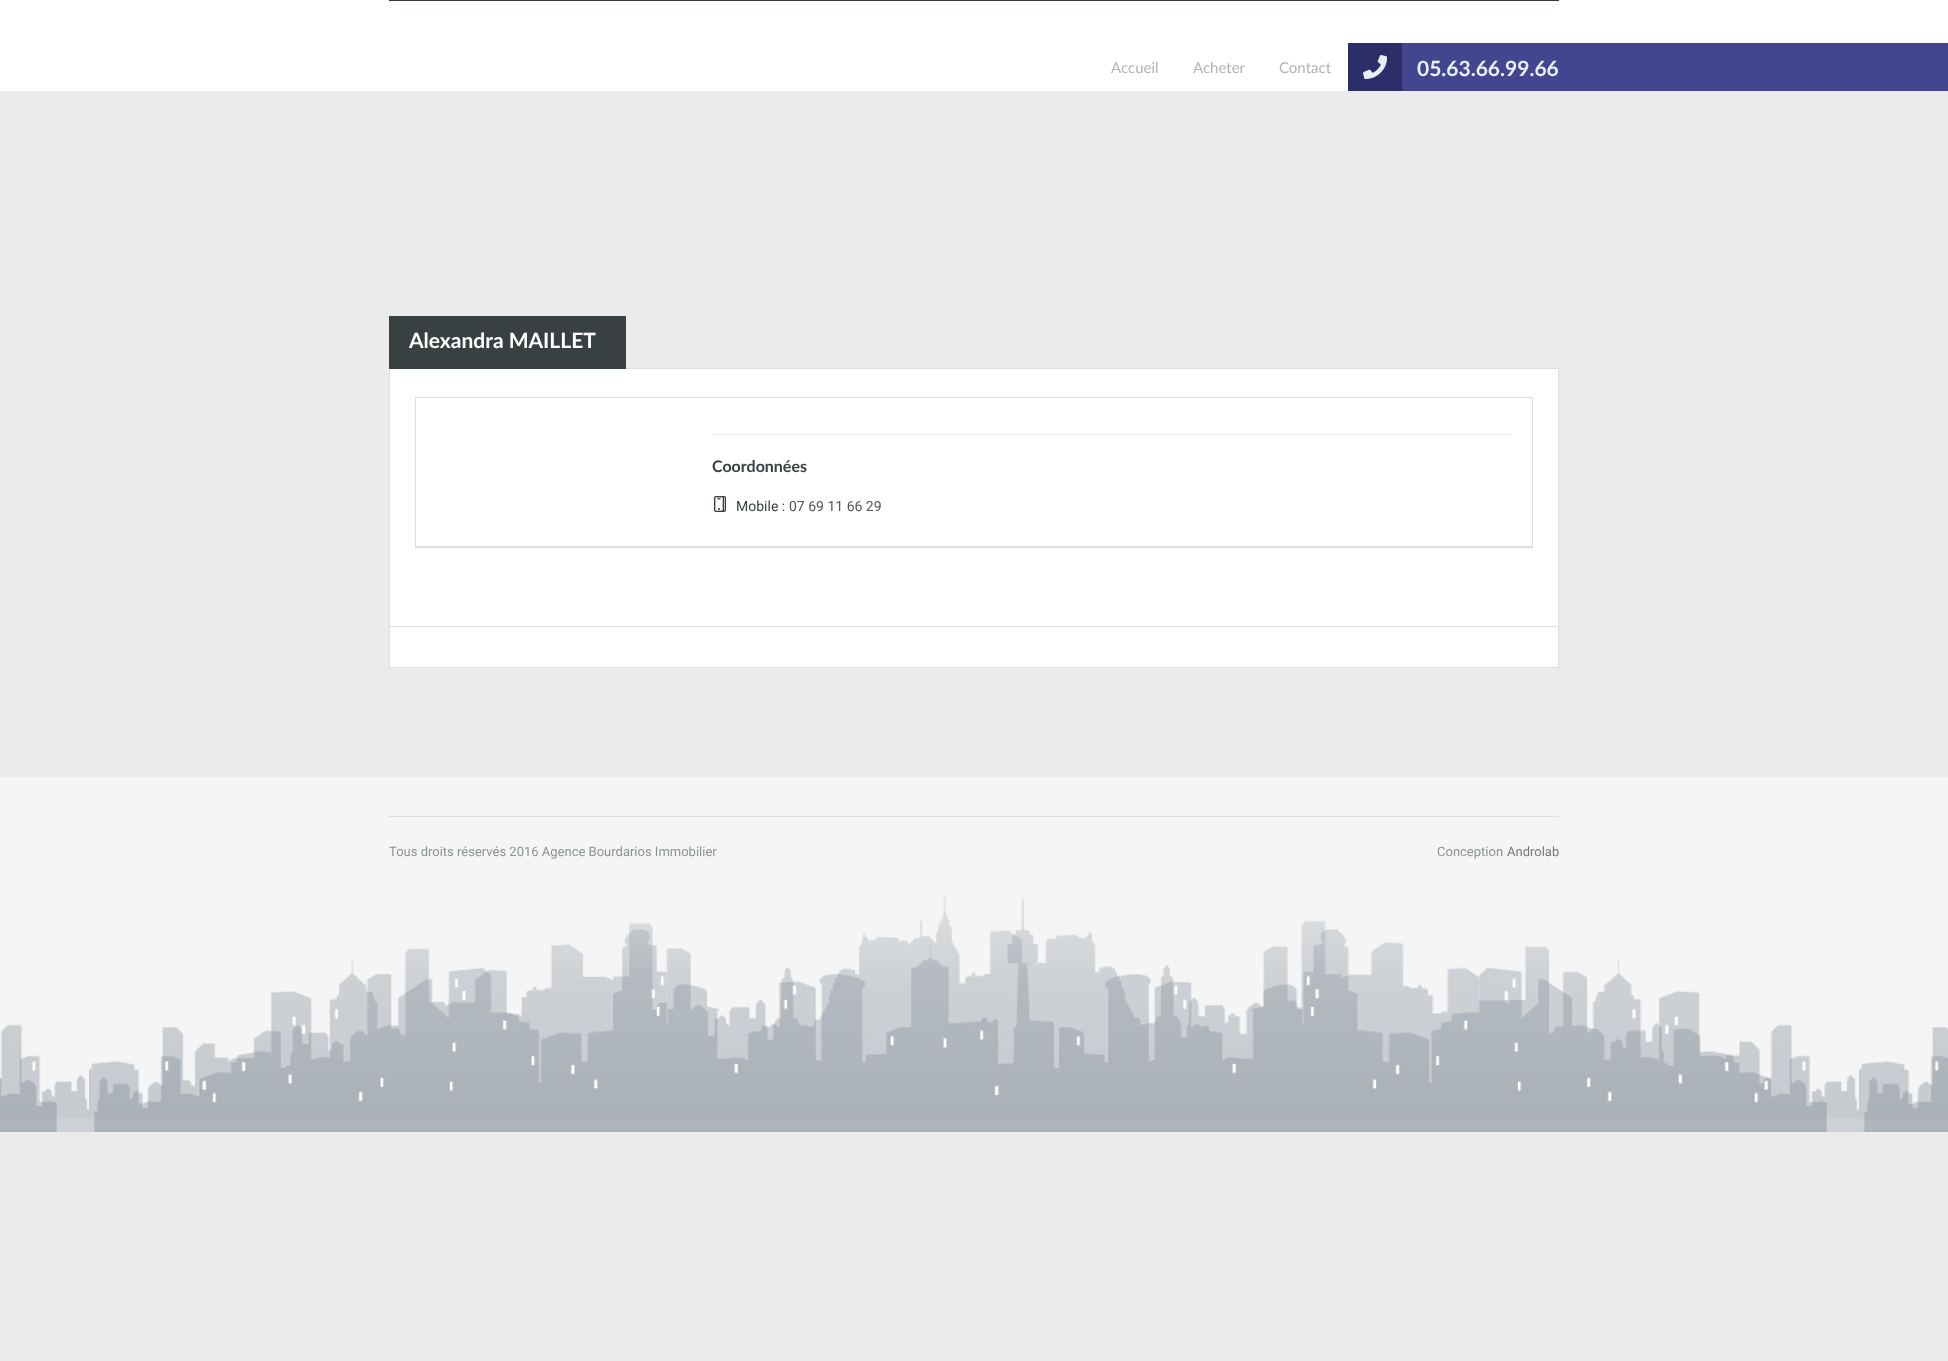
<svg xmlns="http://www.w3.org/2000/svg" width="1948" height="1361">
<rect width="100%" height="100%" fill="#ebebeb"/>
<rect width="1948" height="91" fill="#fff"/>
<rect x="389" width="1170" height="1" fill="#343a3b"/>
<text x="1111" y="73" style="font-family:Lato;font-size:15px;fill:#afb4b5">Accueil</text>
<text x="1193" y="73" style="font-family:Lato;font-size:15px;fill:#afb4b5">Acheter</text>
<text x="1279" y="73" style="font-family:Lato;font-size:15px;fill:#afb4b5">Contact</text>
<rect x="1402" y="43" width="546" height="48" fill="#43468f"/>
<rect x="1348" y="43" width="54" height="48" fill="#2c2e69"/>
<image x="1363" y="55" width="25" height="24" href="media/1.png"/>
<text x="1417" y="76" style="font-family:Lato;font-size:21px;font-weight:bold;fill:#e7eff7">05.63.66.99.66</text>
<rect x="1558" y="368" width="1" height="300" fill="#dedede"/>
<rect x="389" y="368" width="1" height="300" fill="#dedede"/>
<rect x="390" y="369" width="1168" height="298" fill="#fff"/>
<rect x="626" y="368" width="932" height="1" fill="#dedede"/>
<rect x="390" y="667" width="1168" height="1" fill="#dedede"/>
<rect x="389" y="316" width="237" height="53" fill="#394041"/>
<text x="409" y="348" style="font-family:Lato;font-size:21px;font-weight:bold;fill:#fff">Alexandra MAILLET</text>
<rect x="415.5" y="397.5" width="1117" height="150" fill="none" stroke="#dedede"/>
<rect x="712" y="434" width="800" height="1" fill="#eee"/>
<text x="712" y="472" style="font-family:Lato;font-size:16px;font-weight:bold;fill:#394041">Coordonnées</text>
<image x="714" y="496" width="12" height="16" href="media/2.png"/>
<text x="736" y="511" style="font-family:Roboto;font-size:14px;fill:#394041">Mobile :</text>
<text x="789" y="511" style="font-family:Roboto;font-size:14px;fill:#555">07 69 11 66 29</text>
<rect x="416" y="546" width="1116" height="1" fill="#dedede"/>
<rect x="390" y="626" width="1168" height="1" fill="#dedede"/>
<rect y="777" width="1948" height="342" fill="#f5f5f5"/>
<image x="0" y="897" width="1948" height="235" href="media/3.png"/>
<rect x="389" y="816" width="1170" height="1" fill="#dedede"/>
<text x="389" y="856" style="font-family:Roboto;font-size:13px;fill:#8b9293">Tous droits réservés 2016 Agence Bourdarios Immobilier</text>
<text x="1437" y="856" style="font-family:Roboto;font-size:13px;fill:#8b9293">Conception</text>
<text x="1507" y="856" style="font-family:Roboto;font-size:13px;fill:#75797a">Androlab</text>
</svg>
